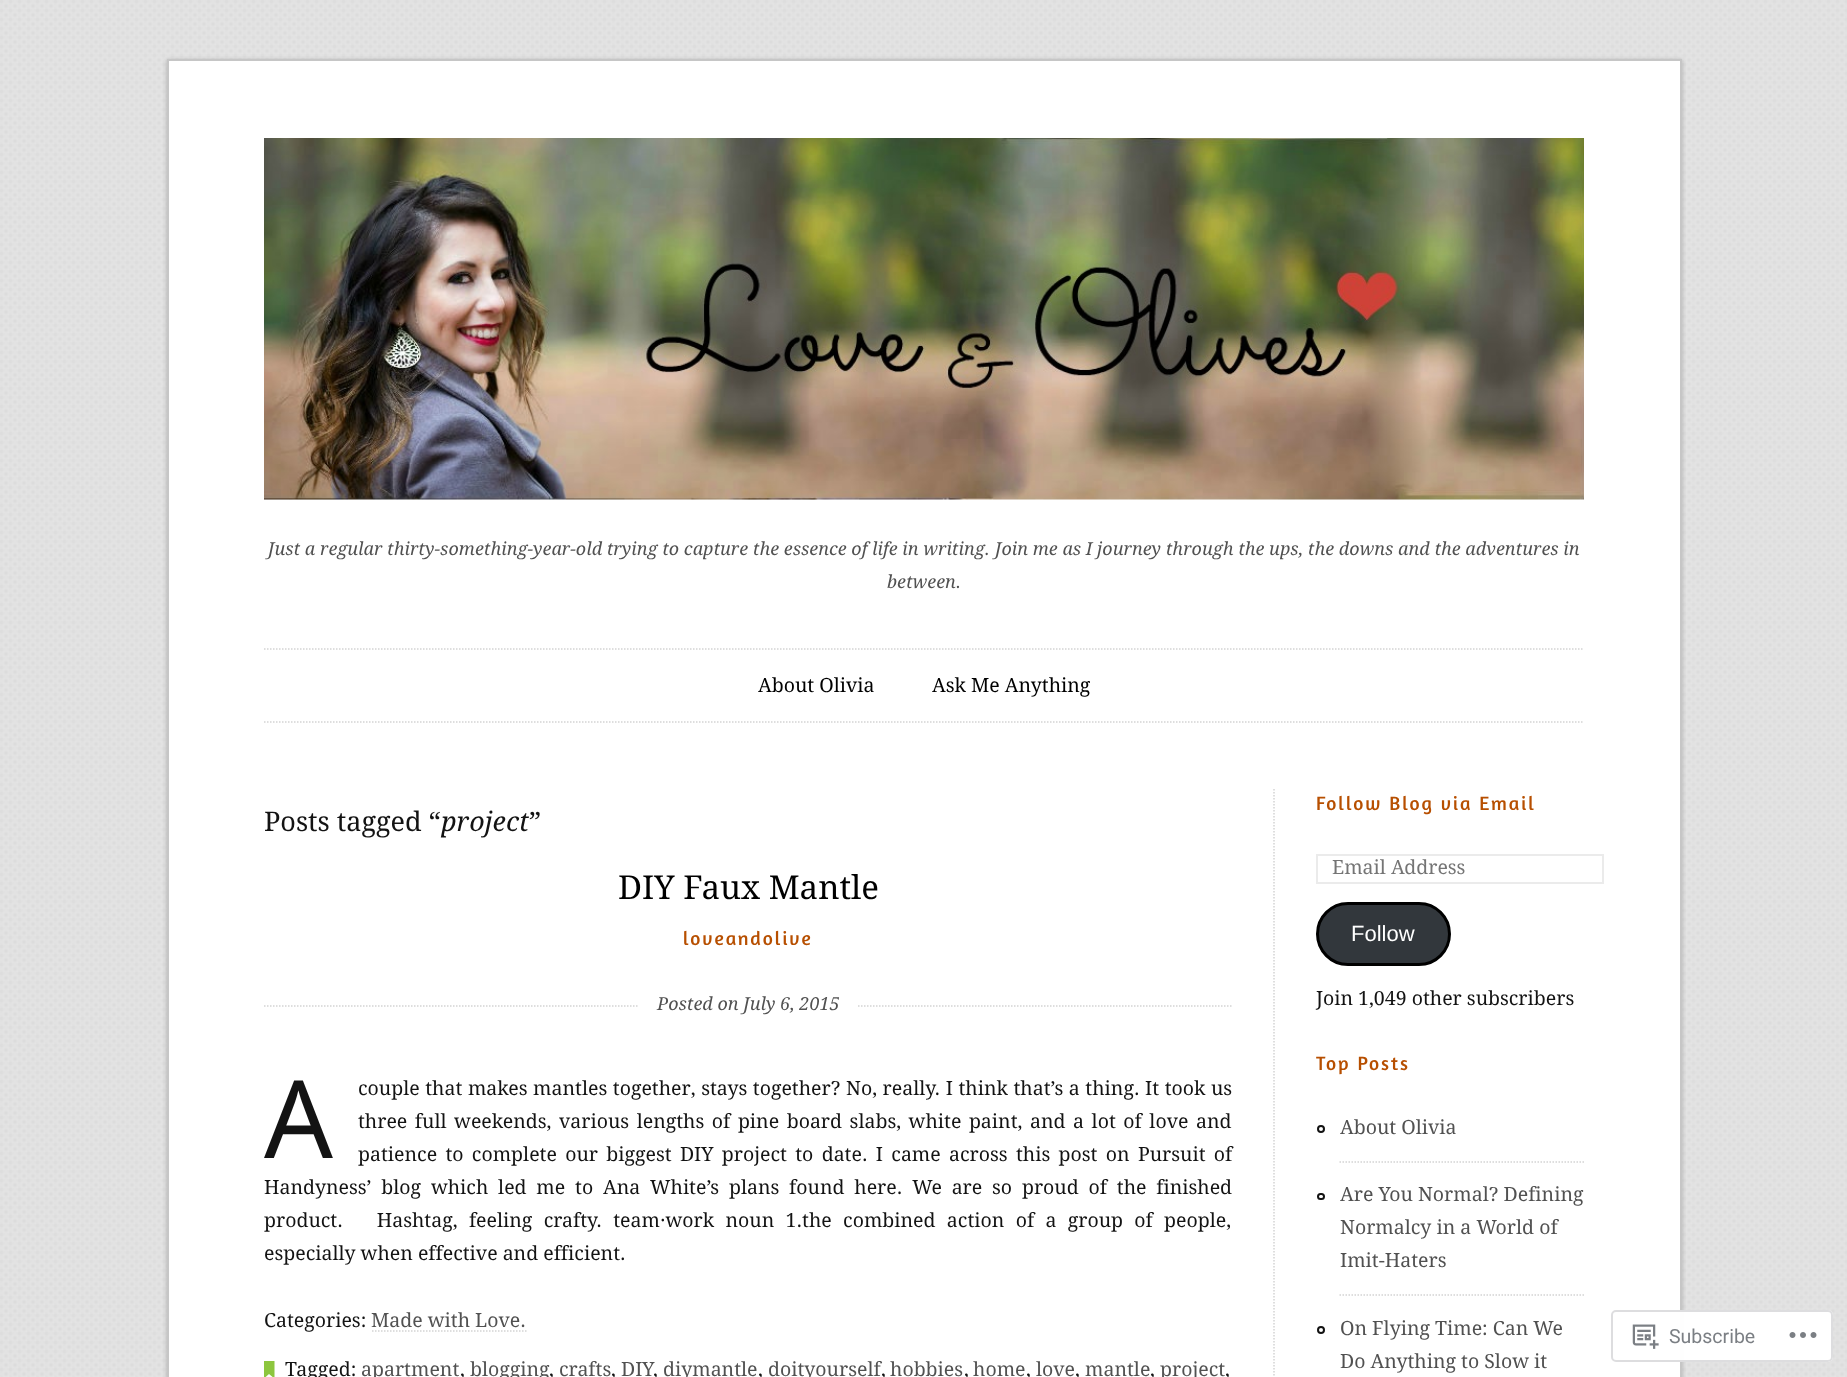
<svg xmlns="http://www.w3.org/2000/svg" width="1847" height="1377">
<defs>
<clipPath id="clip1"><rect x="264" y="1361" width="11" height="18"/></clipPath>
</defs>
<rect width="100%" height="100%" fill="#fff"/>
<image x="0" y="0" width="1847" height="1377" href="media/1.png"/>
<rect x="167" y="60" width="1515" height="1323" fill="#64646473" filter="blur(2px)"/>
<rect x="168" y="60" width="1513" height="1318" fill="#fff" stroke="#c6c6c6" stroke-width="2"/>
<image x="264" y="138" width="1320" height="362" href="media/2.png"/>
<text x="268" y="555" style="font-family:Droid Serif;font-size:18px;font-style:italic;fill:#515151">Just a regular thirty-something-year-old trying to capture the essence of life in writing.</text>
<text x="995" y="555" style="font-family:Droid Serif;font-size:18px;font-style:italic;fill:#515151">Join me as I journey through the ups, the downs and the adventures in</text>
<text x="887" y="588" style="font-family:Droid Serif;font-size:18px;font-style:italic;fill:#515151">between.</text>
<path d="M264 649h1320" fill="none" stroke="#d3d3d3" stroke-width="1.5" stroke-dasharray="1.5 1.5"/>
<path d="M264 722h1320" fill="none" stroke="#d3d3d3" stroke-width="1.5" stroke-dasharray="1.5 1.5"/>
<text x="758" y="692" style="font-family:Droid Serif;font-size:19.5px;fill:#000">About Olivia</text>
<text x="932" y="692" style="font-family:Droid Serif;font-size:19.5px;fill:#000">Ask Me Anything</text>
<path d="M1274 789v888" fill="none" stroke="#d3d3d3" stroke-width="1.5" stroke-dasharray="1.5 1.5"/>
<text x="264" y="831" style="font-family:Droid Serif;font-size:27px;fill:#131313">Posts tagged “</text>
<text x="441" y="831" style="font-family:Droid Serif;font-size:27px;font-style:italic;fill:#131313">project</text>
<text x="529" y="831" style="font-family:Droid Serif;font-size:27px;fill:#131313">”</text>
<path d="M264 1006h967.5" fill="none" stroke="#d3d3d3" stroke-width="1.5" stroke-dasharray="1.5 1.5"/>
<text x="618" y="899" style="font-family:Droid Serif;font-size:33px;fill:#000">DIY Faux Mantle</text>
<text x="683" y="945" style="font-family:Amaranth;font-size:19.5px;letter-spacing:1.95px;fill:#b74f00">loveandolive</text>
<rect x="639" y="1005" width="218" height="2" fill="#fff"/>
<text x="657" y="1010" style="font-family:Droid Serif;font-size:18px;font-style:italic;fill:#515151">Posted on July 6, 2015</text>
<text x="264" y="1158" style="font-family:Noto Sans;font-size:108px;fill:#131313">A</text>
<text x="358" y="1095" word-spacing="0.5" style="font-family:Droid Serif;font-size:19.5px;fill:#131313">couple that makes mantles together, stays together? No, really. I think that’s a thing. It took us</text>
<text x="358" y="1128" word-spacing="2.5" style="font-family:Droid Serif;font-size:19.5px;fill:#131313">three full weekends, various lengths of pine board slabs, white paint, and a lot of love and</text>
<text x="358" y="1161" word-spacing="3.25" style="font-family:Droid Serif;font-size:19.5px;fill:#131313">patience to complete our biggest DIY project to date. I came across this post on Pursuit of</text>
<text x="264" y="1194" word-spacing="4.75" style="font-family:Droid Serif;font-size:19.5px;fill:#131313">Handyness’ blog which led me to Ana White’s plans found here. We are so proud of the finished</text>
<text x="264" y="1227" word-spacing="6.25" style="font-family:Droid Serif;font-size:19.5px;fill:#131313" xml:space="preserve">product.   Hashtag, feeling crafty. team·work noun 1.the combined action of a group of people,</text>
<text x="264" y="1260" style="font-family:Droid Serif;font-size:19.5px;fill:#131313">especially when effective and efficient.</text>
<text x="264" y="1327" style="font-family:Droid Serif;font-size:19.5px;fill:#131313">Categories:</text>
<text x="371" y="1327" style="font-family:Droid Serif;font-size:19.5px;fill:#515151">Made with Love.</text>
<path d="M372 1331h154.5" fill="none" stroke="#d3d3d3" stroke-width="1.5" stroke-dasharray="1.5 1.5"/>
<g clip-path="url(#clip1)">
<path d="M274.5 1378.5l-5.5-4.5l-5 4.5v-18h10.5z" fill="#8dc63e"/>
</g>
<text x="285" y="1376" style="font-family:Droid Serif;font-size:19.5px;fill:#131313">Tagged:</text>
<text x="361" y="1376" style="font-family:Droid Serif;font-size:19.5px;fill:#515151">apartment</text>
<text x="460" y="1376" style="font-family:Droid Serif;font-size:19.5px;fill:#131313">,</text>
<text x="470" y="1376" style="font-family:Droid Serif;font-size:19.5px;fill:#515151">blogging</text>
<text x="549" y="1376" style="font-family:Droid Serif;font-size:19.5px;fill:#131313">,</text>
<text x="559" y="1376" style="font-family:Droid Serif;font-size:19.5px;fill:#515151">crafts</text>
<text x="611" y="1376" style="font-family:Droid Serif;font-size:19.5px;fill:#131313">,</text>
<text x="621" y="1376" style="font-family:Droid Serif;font-size:19.5px;fill:#515151">DIY</text>
<text x="653" y="1376" style="font-family:Droid Serif;font-size:19.5px;fill:#131313">,</text>
<text x="663" y="1376" style="font-family:Droid Serif;font-size:19.5px;fill:#515151">diymantle</text>
<text x="758" y="1376" style="font-family:Droid Serif;font-size:19.5px;fill:#131313">,</text>
<text x="768" y="1376" style="font-family:Droid Serif;font-size:19.5px;fill:#515151">doityourself</text>
<text x="881" y="1376" style="font-family:Droid Serif;font-size:19.5px;fill:#131313">,</text>
<text x="890" y="1376" style="font-family:Droid Serif;font-size:19.5px;fill:#515151">hobbies</text>
<text x="964" y="1376" style="font-family:Droid Serif;font-size:19.5px;fill:#131313">,</text>
<text x="973" y="1376" style="font-family:Droid Serif;font-size:19.5px;fill:#515151">home</text>
<text x="1026" y="1376" style="font-family:Droid Serif;font-size:19.5px;fill:#131313">,</text>
<text x="1036" y="1376" style="font-family:Droid Serif;font-size:19.5px;fill:#515151">love</text>
<text x="1075" y="1376" style="font-family:Droid Serif;font-size:19.5px;fill:#131313">,</text>
<text x="1085" y="1376" style="font-family:Droid Serif;font-size:19.5px;fill:#515151">mantle</text>
<text x="1150" y="1376" style="font-family:Droid Serif;font-size:19.5px;fill:#131313">,</text>
<text x="1160" y="1376" style="font-family:Droid Serif;font-size:19.5px;fill:#515151">project</text>
<text x="1225" y="1376" style="font-family:Droid Serif;font-size:19.5px;fill:#131313">,</text>
<text x="1316" y="810" style="font-family:Amaranth;font-size:19.5px;letter-spacing:1.95px;fill:#b74f00">Follow Blog via Email</text>
<rect x="1317" y="855" width="286" height="28" fill="none" stroke="#ebebeb" stroke-width="2"/>
<text x="1332" y="874" style="font-family:Droid Serif;font-size:19.5px;fill:#757575">Email Address</text>
<rect x="1317.5" y="903.5" width="132" height="61" rx="30.5" fill="#32373c" stroke="#000" stroke-width="3"/>
<text x="1351" y="941" style="font-family:Liberation Sans;font-size:22px;fill:#fff">Follow</text>
<text x="1316" y="1005" style="font-family:Droid Serif;font-size:19.5px;fill:#131313">Join 1,049 other subscribers</text>
<text x="1316" y="1070" style="font-family:Amaranth;font-size:19.5px;letter-spacing:1.95px;fill:#b74f00">Top Posts</text>
<path d="M1339.5 1162h244.5" fill="none" stroke="#d3d3d3" stroke-width="1.5" stroke-dasharray="1.5 1.5"/>
<circle cx="1321" cy="1129" r="3" fill="none" stroke="#131313" stroke-width="2"/>
<text x="1340" y="1134" style="font-family:Droid Serif;font-size:19.5px;fill:#515151">About Olivia</text>
<path d="M1339.5 1295h244.5" fill="none" stroke="#d3d3d3" stroke-width="1.5" stroke-dasharray="1.5 1.5"/>
<rect x="1318" y="1194" width="6" height="5" rx="2.5" fill="none" stroke="#131313" stroke-width="2"/>
<text x="1340" y="1201" style="font-family:Droid Serif;font-size:19.5px;fill:#515151">Are You Normal? Defining</text>
<text x="1340" y="1234" style="font-family:Droid Serif;font-size:19.5px;fill:#515151">Normalcy in a World of</text>
<text x="1340" y="1267" style="font-family:Droid Serif;font-size:19.5px;fill:#515151">Imit-Haters</text>
<circle cx="1321" cy="1330" r="3" fill="none" stroke="#131313" stroke-width="2"/>
<text x="1340" y="1335" style="font-family:Droid Serif;font-size:19.5px;fill:#515151">On Flying Time: Can We</text>
<text x="1340" y="1368" style="font-family:Droid Serif;font-size:19.5px;fill:#515151">Do Anything to Slow it</text>
<rect x="1611" y="1310" width="222" height="52" rx="5" fill="#fffffffa"/>
<rect x="1612" y="1311" width="220" height="50" rx="4" fill="none" stroke="#dcdcdefa" stroke-width="2"/>
<image x="1632" y="1324" width="27" height="25" href="media/3.png"/>
<text x="1669" y="1343" style="font-family:Roboto;font-size:19.5px;fill:#7b7f84">Subscribe</text>
<image x="1789" y="1332" width="28" height="6" href="media/4.png"/>
</svg>
